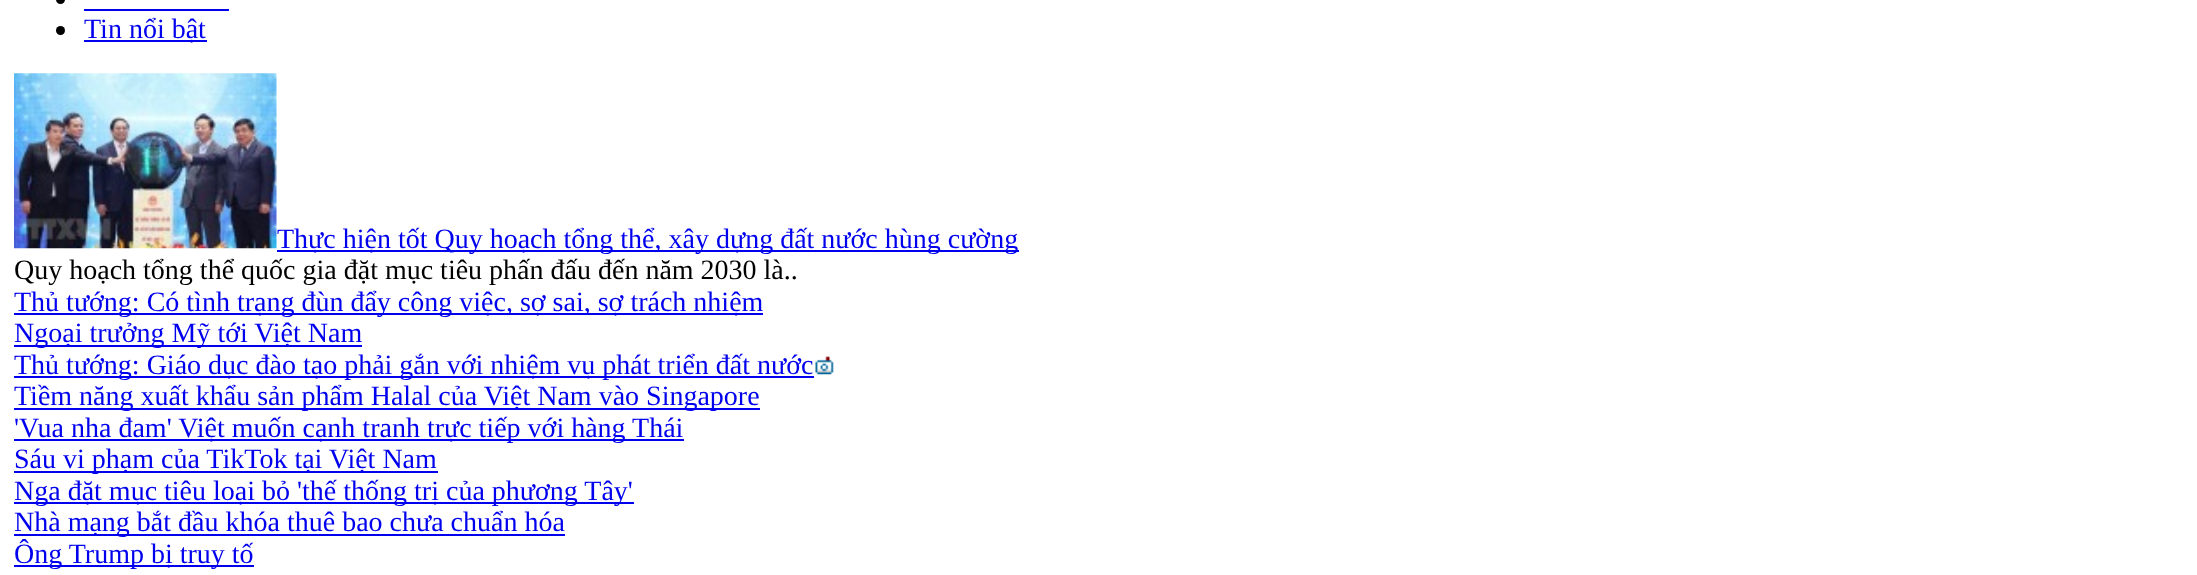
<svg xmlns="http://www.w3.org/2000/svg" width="2197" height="575">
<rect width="100%" height="100%" fill="#fff"/>
<circle cx="60.5" cy="-0.5" r="4.5" fill="#000"/>
<rect x="84" y="9" width="145" height="2" fill="#00e"/>
<circle cx="60.5" cy="30.5" r="4.5" fill="#000"/>
<rect x="84" y="40" width="123" height="2" fill="#00e"/>
<text x="84" y="38" style="font-family:Liberation Serif;font-size:28px;fill:#00e">Tin nổi bật</text>
<image x="14" y="73" width="263" height="176" href="media/1.png"/>
<rect x="277" y="250" width="742" height="2" fill="#00e"/>
<text x="277" y="248" style="font-family:Liberation Serif;font-size:28px;fill:#00e">Thực hiện tốt Quy hoạch tổng thể, xây dựng đất nước hùng cường</text>
<text x="14" y="279" style="font-family:Liberation Serif;font-size:28px;fill:#000">Quy hoạch tổng thể quốc gia đặt mục tiêu phấn đấu đến năm 2030 là..</text>
<rect x="14" y="313" width="749" height="2" fill="#00e"/>
<text x="14" y="311" style="font-family:Liberation Serif;font-size:28px;fill:#00e">Thủ tướng: Có tình trạng đùn đẩy công việc, sợ sai, sợ trách nhiệm</text>
<rect x="14" y="345" width="348" height="2" fill="#00e"/>
<text x="14" y="342" style="font-family:Liberation Serif;font-size:28px;fill:#00e">Ngoại trưởng Mỹ tới Việt Nam</text>
<rect x="14" y="376" width="800" height="2" fill="#00e"/>
<text x="14" y="374" style="font-family:Liberation Serif;font-size:28px;fill:#00e">Thủ tướng: Giáo dục đào tạo phải gắn với nhiệm vụ phát triển đất nước</text>
<image x="815" y="356" width="19" height="19" href="media/2.png"/>
<rect x="14" y="408" width="746" height="2" fill="#00e"/>
<text x="14" y="405" style="font-family:Liberation Serif;font-size:28px;fill:#00e">Tiềm năng xuất khẩu sản phẩm Halal của Việt Nam vào Singapore</text>
<rect x="14" y="439" width="670" height="2" fill="#00e"/>
<text x="14" y="437" style="font-family:Liberation Serif;font-size:28px;fill:#00e">'Vua nha đam' Việt muốn cạnh tranh trực tiếp với hàng Thái</text>
<rect x="14" y="471" width="424" height="2" fill="#00e"/>
<text x="14" y="468" style="font-family:Liberation Serif;font-size:28px;fill:#00e">Sáu vi phạm của TikTok tại Việt Nam</text>
<rect x="14" y="502" width="620" height="2" fill="#00e"/>
<text x="14" y="500" style="font-family:Liberation Serif;font-size:28px;fill:#00e">Nga đặt mục tiêu loại bỏ 'thế thống trị của phương Tây'</text>
<rect x="14" y="534" width="551" height="2" fill="#00e"/>
<text x="14" y="531" style="font-family:Liberation Serif;font-size:28px;fill:#00e">Nhà mạng bắt đầu khóa thuê bao chưa chuẩn hóa</text>
<rect x="14" y="565" width="240" height="2" fill="#00e"/>
<text x="14" y="563" style="font-family:Liberation Serif;font-size:28px;fill:#00e">Ông Trump bị truy tố</text>
</svg>
